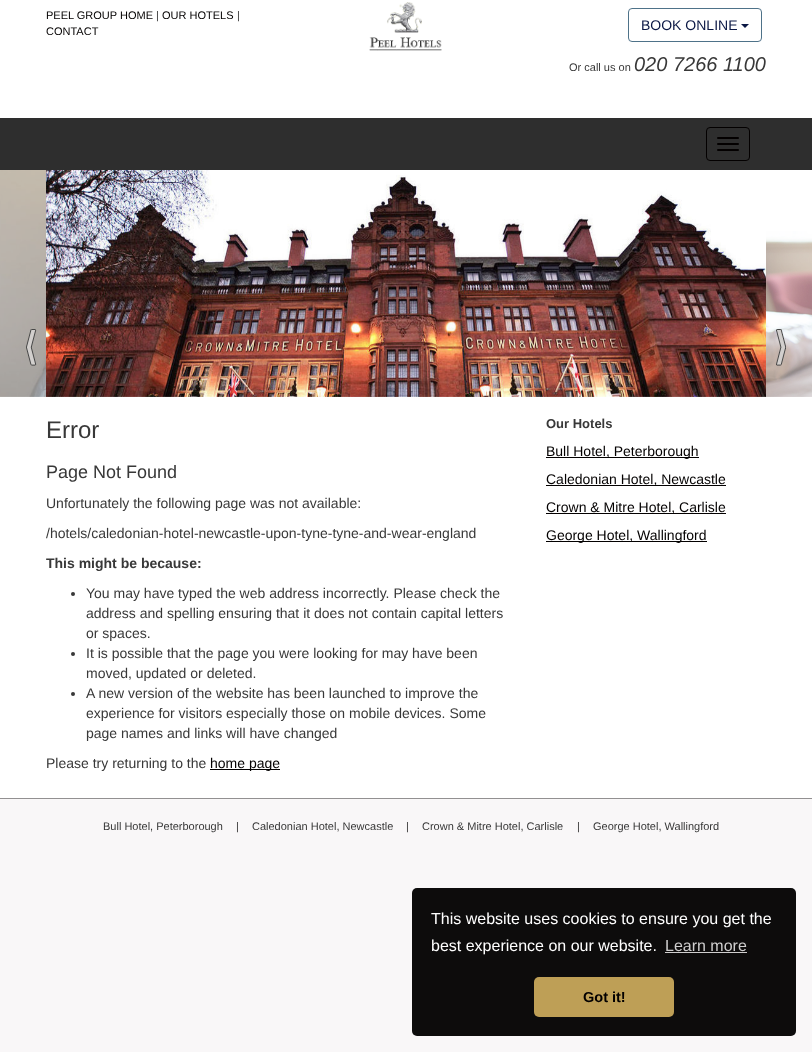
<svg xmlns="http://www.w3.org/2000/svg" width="812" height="1052">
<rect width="100%" height="100%" fill="#fff"/>
<text x="46" y="19" style="font-family:Liberation Sans;font-size:11px;fill:#030000">PEEL GROUP HOME</text>
<text x="156" y="19" style="font-family:Liberation Sans;font-size:11px;fill:#383838">|</text>
<text x="162" y="19" style="font-family:Liberation Sans;font-size:11px;fill:#030000">OUR HOTELS</text>
<text x="237" y="19" style="font-family:Liberation Sans;font-size:11px;fill:#383838">|</text>
<text x="46" y="35" style="font-family:Liberation Sans;font-size:11px;fill:#030000">CONTACT</text>
<image x="369" y="2" width="73" height="49" href="media/1.png"/>
<rect x="628.5" y="8.5" width="133" height="33" rx="3.5" fill="none" stroke="#4e7289"/>
<text x="641" y="30" style="font-family:Liberation Sans;font-size:14px;fill:#0a1744">BOOK ONLINE</text>
<path d="M741 24h8l-4 4z" fill="#0a1744"/>
<text x="569" y="71" style="font-family:Liberation Sans;font-size:11px;fill:#383838">Or call us on</text>
<text x="634" y="71" style="font-family:Liberation Sans;font-size:20px;font-style:italic;fill:#383838">020 7266 1100</text>
<rect y="118" width="812" height="52" fill="#2e2e2e"/>
<rect x="706.5" y="127.5" width="43" height="33" rx="3.5" fill="none" stroke="#030000"/>
<rect x="717" y="137" width="22" height="2" rx="1" fill="#030000"/>
<rect x="717" y="143" width="22" height="2" rx="1" fill="#030000"/>
<rect x="717" y="149" width="22" height="2" rx="1" fill="#030000"/>
<image x="0" y="170" width="46" height="227" href="media/2.png"/>
<image x="46" y="170" width="720" height="227" href="media/3.png"/>
<image x="766" y="231" width="46" height="166" href="media/4.png"/>
<image x="26" y="329" width="11" height="37" href="media/5.png"/>
<image x="776" y="329" width="10" height="37" href="media/6.png"/>
<text x="46" y="438" style="font-family:Liberation Sans;font-size:24px;fill:#383838">Error</text>
<text x="46" y="478" style="font-family:Liberation Sans;font-size:18px;fill:#383838">Page Not Found</text>
<text x="46" y="508" style="font-family:Liberation Sans;font-size:14px;fill:#383838">Unfortunately the following page was not available:</text>
<text x="46" y="538" style="font-family:Liberation Sans;font-size:14px;fill:#383838">/hotels/caledonian-hotel-newcastle-upon-tyne-tyne-and-wear-england</text>
<text x="46" y="568" style="font-family:Liberation Sans;font-size:14px;font-weight:bold;fill:#383838">This might be because:</text>
<circle cx="73" cy="594" r="2" fill="#383838"/>
<text x="86" y="598" style="font-family:Liberation Sans;font-size:14px;fill:#383838">You may have typed the web address incorrectly. Please check the</text>
<text x="86" y="618" style="font-family:Liberation Sans;font-size:14px;fill:#383838">address and spelling ensuring that it does not contain capital letters</text>
<text x="86" y="638" style="font-family:Liberation Sans;font-size:14px;fill:#383838">or spaces.</text>
<circle cx="73" cy="654" r="2" fill="#383838"/>
<text x="86" y="658" style="font-family:Liberation Sans;font-size:14px;fill:#383838">It is possible that the page you were looking for may have been</text>
<text x="86" y="678" style="font-family:Liberation Sans;font-size:14px;fill:#383838">moved, updated or deleted.</text>
<circle cx="73" cy="694" r="2" fill="#383838"/>
<text x="86" y="698" style="font-family:Liberation Sans;font-size:14px;fill:#383838">A new version of the website has been launched to improve the</text>
<text x="86" y="718" style="font-family:Liberation Sans;font-size:14px;fill:#383838">experience for visitors especially those on mobile devices. Some</text>
<text x="86" y="738" style="font-family:Liberation Sans;font-size:14px;fill:#383838">page names and links will have changed</text>
<text x="46" y="768" style="font-family:Liberation Sans;font-size:14px;fill:#383838">Please try returning to the</text>
<rect x="210" y="769" width="70" height="1" fill="#030000"/>
<text x="210" y="768" style="font-family:Liberation Sans;font-size:14px;fill:#030000">home page</text>
<text x="546" y="428" style="font-family:Liberation Sans;font-size:13px;font-weight:bold;fill:#383838">Our Hotels</text>
<rect x="546" y="457" width="153" height="1" fill="#030000"/>
<text x="546" y="456" style="font-family:Liberation Sans;font-size:14px;fill:#030000">Bull Hotel, Peterborough</text>
<rect x="546" y="485" width="180" height="1" fill="#030000"/>
<text x="546" y="484" style="font-family:Liberation Sans;font-size:14px;fill:#030000">Caledonian Hotel, Newcastle</text>
<rect x="546" y="513" width="180" height="1" fill="#030000"/>
<text x="546" y="512" style="font-family:Liberation Sans;font-size:14px;fill:#030000">Crown &amp; Mitre Hotel, Carlisle</text>
<rect x="546" y="541" width="161" height="1" fill="#030000"/>
<text x="546" y="540" style="font-family:Liberation Sans;font-size:14px;fill:#030000">George Hotel, Wallingford</text>
<rect y="799" width="812" height="253" fill="#f9f7f8"/>
<rect y="798" width="812" height="1" fill="#929091"/>
<text x="103" y="830" style="font-family:Liberation Sans;font-size:11px;fill:#383838">Bull Hotel, Peterborough</text>
<text x="236" y="830" style="font-family:Liberation Sans;font-size:11px;fill:#383838">|</text>
<text x="252" y="830" style="font-family:Liberation Sans;font-size:11px;fill:#383838">Caledonian Hotel, Newcastle</text>
<text x="406" y="830" style="font-family:Liberation Sans;font-size:11px;fill:#383838">|</text>
<text x="422" y="830" style="font-family:Liberation Sans;font-size:11px;fill:#383838">Crown &amp; Mitre Hotel, Carlisle</text>
<text x="577" y="830" style="font-family:Liberation Sans;font-size:11px;fill:#383838">|</text>
<text x="593" y="830" style="font-family:Liberation Sans;font-size:11px;fill:#383838">George Hotel, Wallingford</text>
<rect x="412" y="888" width="384" height="148" rx="5" fill="#0d0c0c"/>
<text x="431" y="924" style="font-family:Liberation Sans;font-size:16px;fill:#fff">This website uses cookies to ensure you get the</text>
<text x="431" y="951" style="font-family:Liberation Sans;font-size:16px;fill:#fff">best experience on our website.</text>
<text x="665" y="951" style="font-family:Liberation Sans;font-size:16px;fill:#cfcece">Learn more</text>
<rect x="665" y="952" width="82" height="1" fill="#cfcece"/>
<rect x="534" y="977" width="140" height="40" rx="5" fill="#be9f56"/>
<text x="583" y="1002" style="font-family:Liberation Sans;font-size:14.5px;font-weight:bold;fill:#030000">Got it!</text>
</svg>
